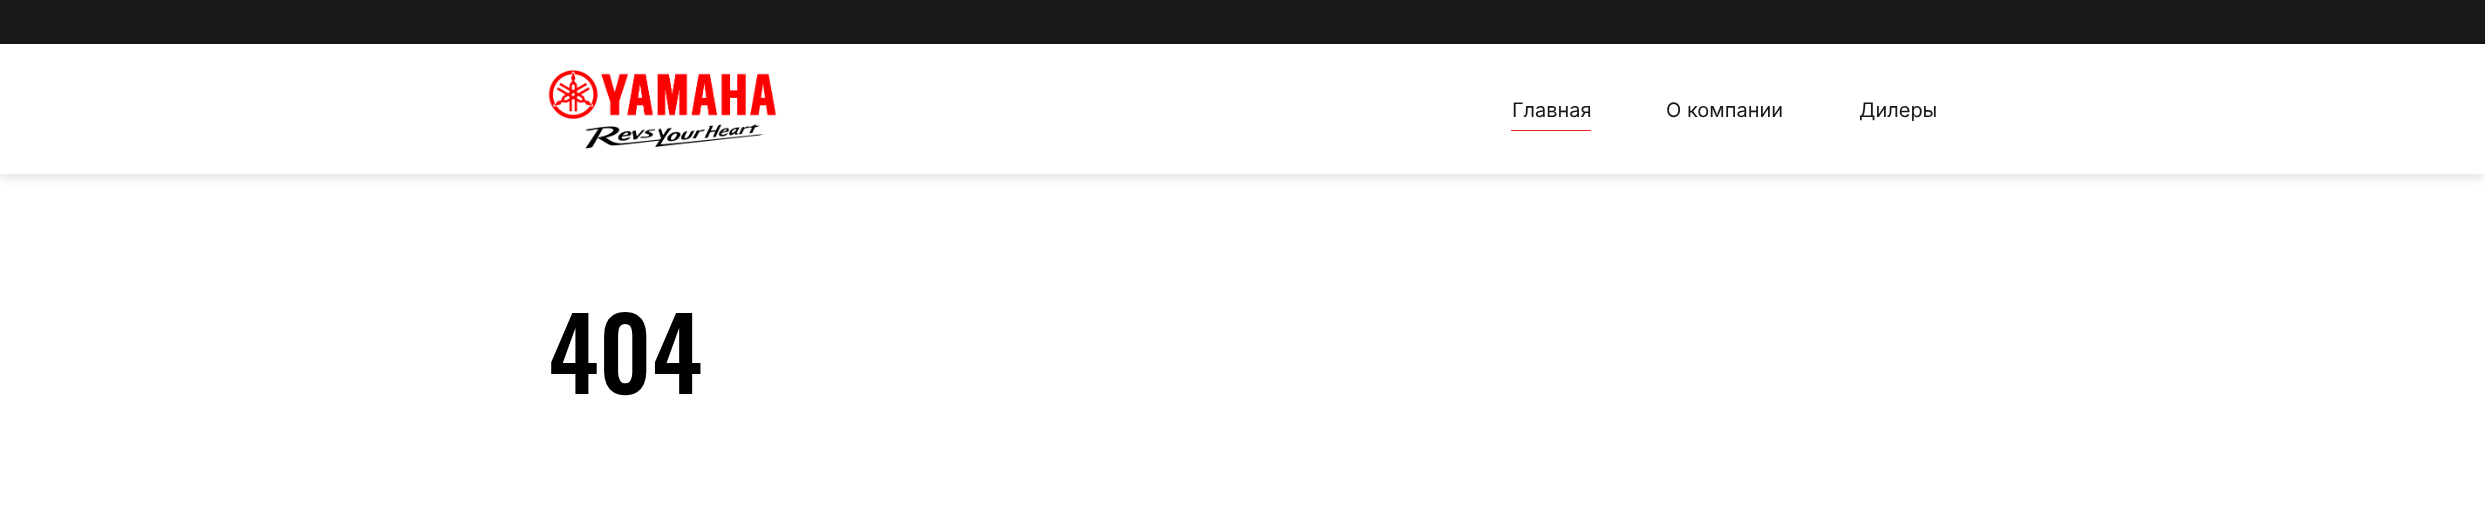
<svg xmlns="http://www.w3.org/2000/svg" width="2485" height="516">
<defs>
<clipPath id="clip1"><path d="M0 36h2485v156h-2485zm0 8h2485v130h-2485z" clip-rule="evenodd"/></clipPath>
</defs>
<rect width="100%" height="100%" fill="#fff"/>
<rect width="2485" height="44" fill="#181818"/>
<g clip-path="url(#clip1)">
<rect y="49" width="2485" height="130" fill="#1818181a" filter="blur(4px)"/>
</g>
<image x="548" y="70" width="229" height="79" href="media/1.png"/>
<text x="1512" y="117" style="font-family:Inter;font-size:20px;fill:#181818">Главная</text>
<rect x="1511" y="130" width="80" height="1" fill="#ed1c24"/>
<text x="1666" y="117" style="font-family:Inter;font-size:20px;fill:#181818">О компании</text>
<text x="1859" y="117" style="font-family:Inter;font-size:20px;fill:#181818">Дилеры</text>
<text x="548" y="394" style="font-family:Oswald;font-size:100px;font-weight:500;fill:#000">404</text>
</svg>
